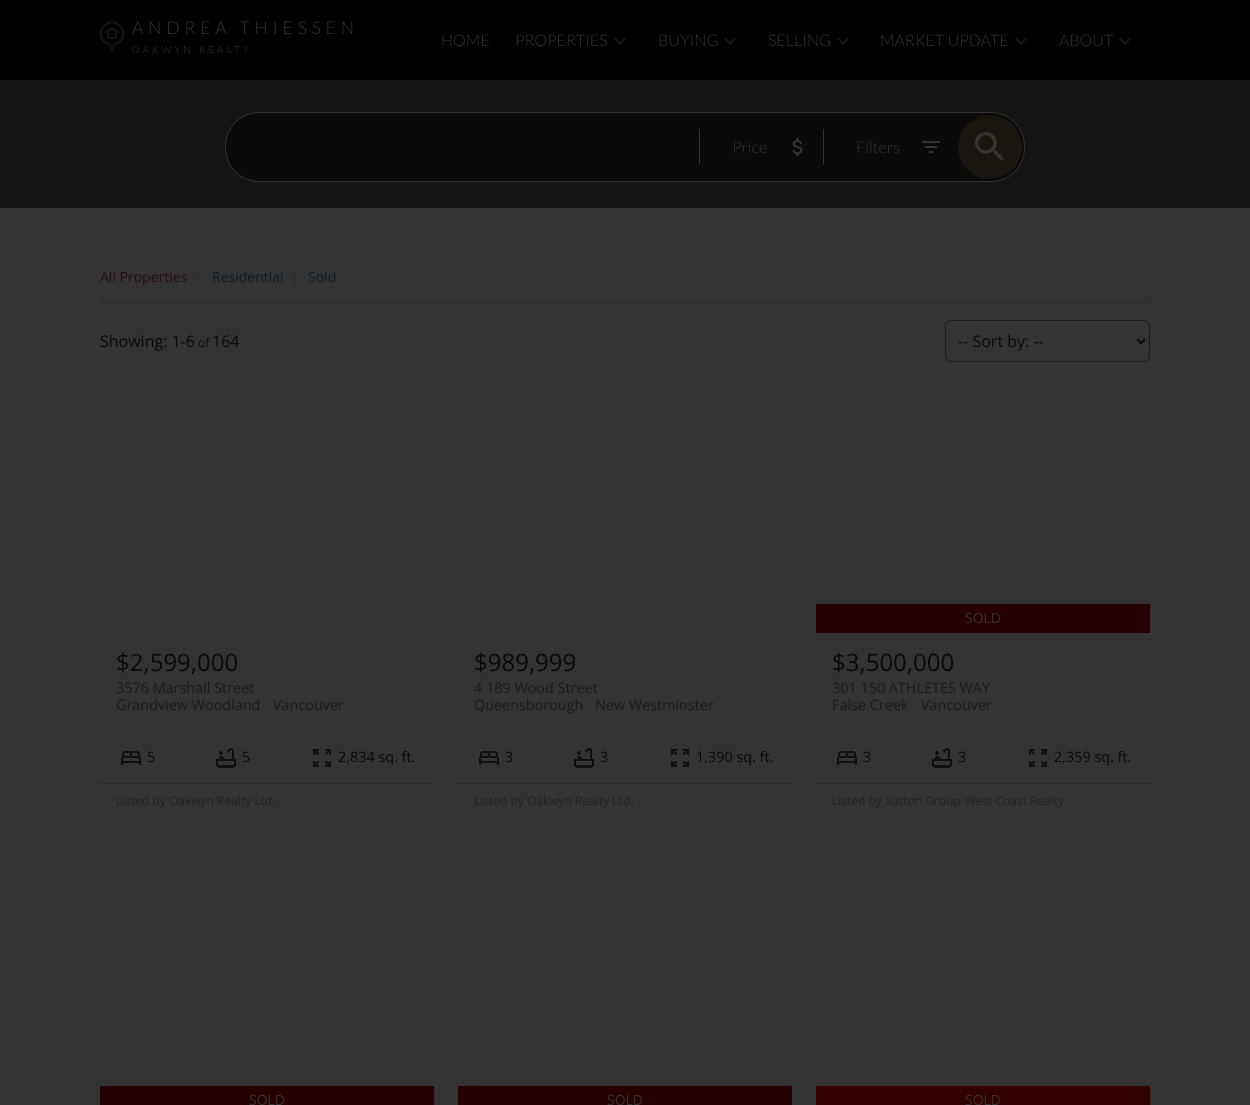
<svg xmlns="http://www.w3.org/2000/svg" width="1250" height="1105">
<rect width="100%" height="100%" fill="#333"/>
<rect width="1250" height="80" fill="#000"/>
<image x="100" y="21" width="24" height="31" href="media/1.png"/>
<text x="132" y="34" style="font-family:Lato;font-size:17.6px;font-weight:300;letter-spacing:4.75px;fill:#333">ANDREA THIESSEN</text>
<text x="132" y="53" style="font-family:Lato;font-size:9.6px;font-weight:300;letter-spacing:3.25px;fill:#333">OAKWYN REALTY</text>
<text x="441" y="46" style="font-family:Lato;font-size:16px;font-weight:300;fill:#333">HOME</text>
<text x="515" y="46" style="font-family:Lato;font-size:16px;font-weight:300;fill:#333">PROPERTIES</text>
<image x="614" y="37" width="12" height="8" href="media/2.png"/>
<text x="658" y="46" style="font-family:Lato;font-size:16px;font-weight:300;fill:#333">BUYING</text>
<image x="724" y="37" width="12" height="8" href="media/2.png"/>
<text x="768" y="46" style="font-family:Lato;font-size:16px;font-weight:300;fill:#333">SELLING</text>
<image x="837" y="37" width="12" height="8" href="media/2.png"/>
<text x="880" y="46" style="font-family:Lato;font-size:16px;font-weight:300;fill:#333">MARKET UPDATE</text>
<image x="1015" y="37" width="12" height="8" href="media/2.png"/>
<text x="1059" y="46" style="font-family:Lato;font-size:16px;font-weight:300;fill:#333">ABOUT</text>
<image x="1119" y="37" width="12" height="8" href="media/2.png"/>
<rect y="80" width="1250" height="128" fill="#141414"/>
<rect x="225.5" y="112.5" width="799" height="69" rx="33.5" fill="#0a0a0a" stroke="#333"/>
<image x="792" y="138" width="11" height="18" href="media/3.png"/>
<rect x="699" y="129" width="1" height="36" fill="#333"/>
<text x="732" y="153" style="font-family:Lato;font-size:16px;font-weight:300;fill:#333">Price</text>
<image x="922" y="141" width="18" height="12" href="media/4.png"/>
<rect x="823" y="129" width="1" height="36" fill="#333"/>
<text x="856" y="153" style="font-family:Lato;font-size:16px;font-weight:300;fill:#333">Filters</text>
<circle cx="990" cy="147" r="32" fill="#1a160f"/>
<image x="975" y="132" width="30" height="30" href="media/5.png"/>
<rect x="197" y="270" width="1" height="14" fill="#2c2c2c"/>
<text x="100" y="282" style="font-family:Open Sans;font-size:14px;fill:#290e0e">All Properties</text>
<rect x="294" y="270" width="1" height="14" fill="#2c2c2c"/>
<text x="212" y="282" style="font-family:Open Sans;font-size:14px;fill:#0d1c28">Residential</text>
<text x="308" y="282" style="font-family:Open Sans;font-size:14px;fill:#0d1c28">Sold</text>
<rect x="100" y="302" width="1050" height="1" fill="#2c2c2c"/>
<text x="100" y="347" style="font-family:Open Sans;font-size:16px;fill:#0a0a0a">Showing: 1-6</text>
<text x="198" y="347" style="font-family:Open Sans;font-size:12px;fill:#0a0a0a">of</text>
<text x="212" y="347" style="font-family:Open Sans;font-size:16px;fill:#0a0a0a">164</text>
<rect x="945.5" y="320.5" width="204" height="41" rx="5.5" fill="none" stroke="#1b1b1b"/>
<path d="M1137 339l4 4l4-4" fill="none" stroke="#0a0a0a" stroke-width="2"/>
<text x="958" y="347" style="font-family:Open Sans;font-size:16px;fill:#0a0a0a">-- Sort by: --</text>
<text x="116" y="671" style="font-family:Open Sans;font-size:24px;fill:#0a0a0a">$2,599,000</text>
<text x="116" y="693" style="font-family:Open Sans;font-size:14.4px;fill:#1b1b1b">3576 Marshall Street</text>
<text x="116" y="710" style="font-family:Open Sans;font-size:14.4px;fill:#1b1b1b">Grandview Woodland</text>
<text x="273" y="710" style="font-family:Open Sans;font-size:14.4px;fill:#1b1b1b">Vancouver</text>
<image x="121" y="751" width="20" height="14" href="media/6.png"/>
<text x="147" y="762" style="font-family:Open Sans;font-size:14.4px;fill:#0a0a0a">5</text>
<image x="216" y="748" width="20" height="20" href="media/7.png"/>
<text x="242" y="762" style="font-family:Open Sans;font-size:14.4px;fill:#0a0a0a">5</text>
<image x="313" y="749" width="18" height="18" href="media/8.png"/>
<text x="338" y="762" style="font-family:Open Sans;font-size:14.4px;fill:#0a0a0a">2,834 sq. ft.</text>
<rect x="100" y="783" width="334" height="1" fill="#282828"/>
<text x="116" y="805" style="font-family:Open Sans;font-size:12px;fill:#222">Listed by Oakwyn Realty Ltd.</text>
<text x="474" y="671" style="font-family:Open Sans;font-size:24px;fill:#0a0a0a">$989,999</text>
<text x="474" y="693" style="font-family:Open Sans;font-size:14.4px;fill:#1b1b1b">4 189 Wood Street</text>
<text x="474" y="710" style="font-family:Open Sans;font-size:14.4px;fill:#1b1b1b">Queensborough</text>
<text x="595" y="710" style="font-family:Open Sans;font-size:14.4px;fill:#1b1b1b">New Westminster</text>
<image x="479" y="751" width="20" height="14" href="media/6.png"/>
<text x="505" y="762" style="font-family:Open Sans;font-size:14.4px;fill:#0a0a0a">3</text>
<image x="574" y="748" width="20" height="20" href="media/7.png"/>
<text x="600" y="762" style="font-family:Open Sans;font-size:14.4px;fill:#0a0a0a">3</text>
<image x="671" y="749" width="18" height="18" href="media/8.png"/>
<text x="696" y="762" style="font-family:Open Sans;font-size:14.4px;fill:#0a0a0a">1,390 sq. ft.</text>
<rect x="458" y="783" width="334" height="1" fill="#282828"/>
<text x="474" y="805" style="font-family:Open Sans;font-size:12px;fill:#222">Listed by Oakwyn Realty Ltd.</text>
<rect x="816" y="604" width="334" height="29" fill="#260000"/>
<text x="965" y="623" style="font-family:Open Sans;font-size:14px;fill:#333">SOLD</text>
<text x="832" y="671" style="font-family:Open Sans;font-size:24px;fill:#0a0a0a">$3,500,000</text>
<text x="832" y="693" style="font-family:Open Sans;font-size:14.4px;fill:#1b1b1b">301 150 ATHLETES WAY</text>
<text x="832" y="710" style="font-family:Open Sans;font-size:14.4px;fill:#1b1b1b">False Creek</text>
<text x="921" y="710" style="font-family:Open Sans;font-size:14.4px;fill:#1b1b1b">Vancouver</text>
<image x="837" y="751" width="20" height="14" href="media/6.png"/>
<text x="863" y="762" style="font-family:Open Sans;font-size:14.4px;fill:#0a0a0a">3</text>
<image x="932" y="748" width="20" height="20" href="media/7.png"/>
<text x="958" y="762" style="font-family:Open Sans;font-size:14.4px;fill:#0a0a0a">3</text>
<image x="1029" y="749" width="18" height="18" href="media/8.png"/>
<text x="1054" y="762" style="font-family:Open Sans;font-size:14.4px;fill:#0a0a0a">2,359 sq. ft.</text>
<rect x="816" y="783" width="334" height="1" fill="#282828"/>
<text x="832" y="805" style="font-family:Open Sans;font-size:12px;fill:#222">Listed by Sutton Group-West Coast Realty</text>
<rect x="100" y="1086" width="334" height="19" fill="#260000"/>
<text x="249" y="1105" style="font-family:Open Sans;font-size:14px;fill:#333">SOLD</text>
<rect x="458" y="1086" width="334" height="19" fill="#260000"/>
<text x="607" y="1105" style="font-family:Open Sans;font-size:14px;fill:#333">SOLD</text>
<rect x="816" y="1086" width="334" height="19" fill="#320000"/>
<text x="965" y="1105" style="font-family:Open Sans;font-size:14px;fill:#333">SOLD</text>
</svg>
